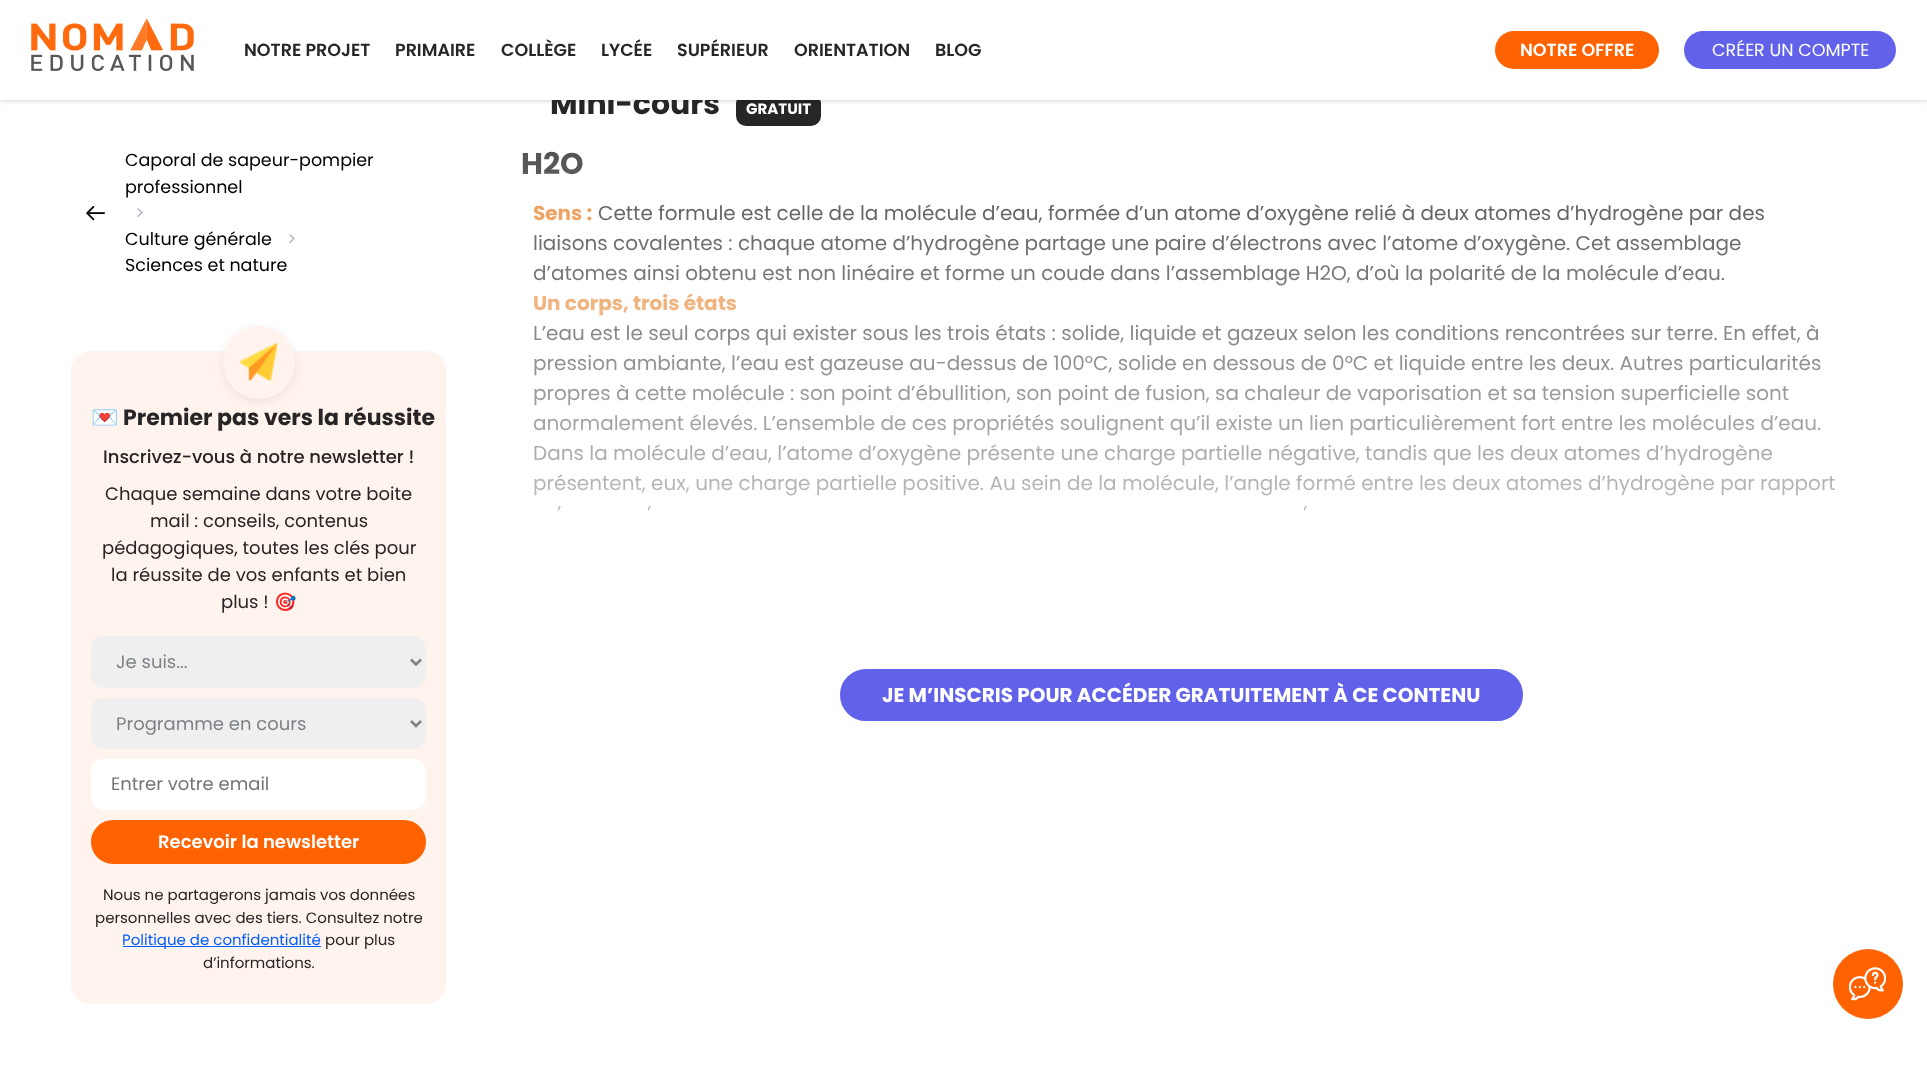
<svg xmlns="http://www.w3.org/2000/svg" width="1927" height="1081">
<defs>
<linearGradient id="g1" gradientUnits="userSpaceOnUse" x1="1181" y1="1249" x2="1181" y2="143"><stop offset="0" stop-color="#fff" stop-opacity="0.98"/><stop offset="0.4" stop-color="#fff" stop-opacity="0.9"/><stop offset="0.6" stop-color="#fff" stop-opacity="0.8"/><stop offset="1" stop-color="#fff" stop-opacity="0.2"/></linearGradient>
</defs>
<rect width="100%" height="100%" fill="#fff"/>
<rect x="736" y="93" width="85" height="33" rx="10" fill="#272525"/>
<rect y="1" width="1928" height="100" fill="#00000029" filter="blur(2.5px)"/>
<text x="550" y="114" style="font-family:Poppins;font-size:30px;font-weight:bold;fill:#272525">Mini-cours</text>
<rect width="1927" height="100" fill="#fff"/>
<image x="31" y="18" width="163" height="53" href="media/1.png"/>
<text x="244" y="56" style="font-family:Poppins;font-size:17.5px;font-weight:600;fill:#272525">NOTRE PROJET</text>
<text x="395" y="56" style="font-family:Poppins;font-size:17.5px;font-weight:600;fill:#272525">PRIMAIRE</text>
<text x="501" y="56" style="font-family:Poppins;font-size:17.5px;font-weight:600;fill:#272525">COLLÈGE</text>
<text x="601" y="56" style="font-family:Poppins;font-size:17.5px;font-weight:600;fill:#272525">LYCÉE</text>
<text x="677" y="56" style="font-family:Poppins;font-size:17.5px;font-weight:600;fill:#272525">SUPÉRIEUR</text>
<text x="794" y="56" style="font-family:Poppins;font-size:17.5px;font-weight:600;fill:#272525">ORIENTATION</text>
<text x="935" y="56" style="font-family:Poppins;font-size:17.5px;font-weight:600;fill:#272525">BLOG</text>
<rect x="1495" y="31" width="164" height="38" rx="19" fill="#ff6201"/>
<text x="1520" y="56" style="font-family:Poppins;font-size:17.5px;font-weight:600;fill:#fff">NOTRE OFFRE</text>
<rect x="1684" y="31" width="212" height="38" rx="19" fill="#6161ea"/>
<text x="1712" y="56" style="font-family:Poppins;font-size:17.5px;fill:#fff">CRÉER UN COMPTE</text>
<image x="86" y="206" width="19" height="15" href="media/2.png"/>
<text x="125" y="166" style="font-family:Poppins;font-size:17.5px;fill:#000">Caporal de sapeur-pompier</text>
<text x="125" y="193" style="font-family:Poppins;font-size:17.5px;fill:#000">professionnel</text>
<text x="135" y="219" style="font-family:Poppins;font-size:17.5px;fill:#adb5bd">&gt;</text>
<text x="125" y="245" style="font-family:Poppins;font-size:17.5px;fill:#000">Culture générale</text>
<text x="287" y="245" style="font-family:Poppins;font-size:17.5px;fill:#adb5bd">&gt;</text>
<text x="125" y="271" style="font-family:Poppins;font-size:17.5px;fill:#000">Sciences et nature</text>
<rect x="71" y="351" width="375" height="653" rx="20" fill="#fff3ed"/>
<rect x="223" y="329" width="72" height="72" rx="36" fill="#00000014" filter="blur(5px)"/>
<rect x="223" y="326" width="72" height="73" rx="36" fill="#fff3ed"/>
<image x="240" y="343" width="38" height="39" href="media/3.png"/>
<text x="91" y="425" style="font-family:Noto Color Emoji;font-size:22px;fill:#272525">💌</text>
<text x="123" y="425" style="font-family:Poppins;font-size:22px;font-weight:bold;fill:#272525">Premier pas vers la réussite</text>
<text x="103" y="463" style="font-family:Poppins;font-size:18px;font-weight:500;fill:#272525">Inscrivez-vous à notre newsletter !</text>
<text x="105" y="500" style="font-family:Poppins;font-size:18px;fill:#272525">Chaque semaine dans votre boite</text>
<text x="150" y="527" style="font-family:Poppins;font-size:18px;fill:#272525">mail : conseils, contenus</text>
<text x="102" y="554" style="font-family:Poppins;font-size:18px;fill:#272525">pédagogiques, toutes les clés pour</text>
<text x="111" y="581" style="font-family:Poppins;font-size:18px;fill:#272525">la réussite de vos enfants et bien</text>
<text x="221" y="608" style="font-family:Poppins;font-size:18px;fill:#272525">plus !</text>
<text x="274" y="608" style="font-family:Noto Color Emoji;font-size:18px;fill:#272525">🎯</text>
<rect x="91" y="636" width="335" height="52" rx="13" fill="#efefef"/>
<path d="M411 659.5l5 5l5-5" fill="none" stroke="#7e8287" stroke-width="2.5"/>
<text x="116" y="668" style="font-family:Poppins;font-size:18px;fill:#7e8287">Je suis...</text>
<rect x="91" y="698" width="335" height="51" rx="13" fill="#efefef"/>
<path d="M411 721l5 5l5-5" fill="none" stroke="#7e8287" stroke-width="2.5"/>
<text x="116" y="730" style="font-family:Poppins;font-size:18px;fill:#7e8287">Programme en cours</text>
<rect x="91" y="759" width="335" height="51" rx="13" fill="#fff"/>
<text x="111" y="790" style="font-family:Poppins;font-size:18px;fill:#757575">Entrer votre email</text>
<rect x="92.5" y="821.5" width="332" height="41" rx="20.5" fill="#ff6201" stroke="#ff6201" stroke-width="3"/>
<text x="158" y="848" style="font-family:Poppins;font-size:18px;font-weight:600;fill:#fff">Recevoir la newsletter</text>
<text x="103" y="900" style="font-family:Poppins;font-size:15px;fill:#272525">Nous ne partagerons jamais vos données</text>
<text x="95" y="923" style="font-family:Poppins;font-size:15px;fill:#272525">personnelles avec des tiers. Consultez notre</text>
<rect x="123" y="946" width="198" height="1" fill="#005eff"/>
<text x="122" y="945" style="font-family:Poppins;font-size:15px;fill:#005eff">Politique de confidentialité</text>
<text x="325" y="945" style="font-family:Poppins;font-size:15px;fill:#272525">pour plus</text>
<text x="203" y="968" style="font-family:Poppins;font-size:15px;fill:#272525">d’informations.</text>
<text x="746" y="114" style="font-family:Poppins;font-size:15px;font-weight:bold;fill:#fff">GRATUIT</text>
<text x="521" y="174" style="font-family:Poppins;font-size:30px;font-weight:bold;fill:#272525">H2O</text>
<text x="533" y="220" style="font-family:Poppins;font-size:20px;font-weight:bold;fill:#e67e23">Sens :</text>
<text x="598" y="220" style="font-family:Poppins;font-size:20px;fill:#272525">Cette formule est celle de la molécule d’eau, formée d’un atome d’oxygène relié à deux atomes d’hydrogène par des</text>
<text x="533" y="250" style="font-family:Poppins;font-size:20px;fill:#272525">liaisons covalentes : chaque atome d’hydrogène partage une paire d’électrons avec l’atome d’oxygène. Cet assemblage</text>
<text x="533" y="280" style="font-family:Poppins;font-size:20px;fill:#272525">d’atomes ainsi obtenu est non linéaire et forme un coude dans l’assemblage H2O, d’où la polarité de la molécule d’eau.</text>
<text x="533" y="310" style="font-family:Poppins;font-size:20px;font-weight:bold;fill:#e67e23">Un corps, trois états</text>
<text x="533" y="340" style="font-family:Poppins;font-size:20px;fill:#272525">L’eau est le seul corps qui exister sous les trois états : solide, liquide et gazeux selon les conditions rencontrées sur terre. En effet, à</text>
<text x="533" y="370" style="font-family:Poppins;font-size:20px;fill:#272525">pression ambiante, l’eau est gazeuse au-dessus de 100°C, solide en dessous de 0°C et liquide entre les deux. Autres particularités</text>
<text x="533" y="400" style="font-family:Poppins;font-size:20px;fill:#272525">propres à cette molécule : son point d’ébullition, son point de fusion, sa chaleur de vaporisation et sa tension superficielle sont</text>
<text x="533" y="430" style="font-family:Poppins;font-size:20px;fill:#272525">anormalement élevés. L’ensemble de ces propriétés soulignent qu’il existe un lien particulièrement fort entre les molécules d’eau.</text>
<text x="533" y="460" style="font-family:Poppins;font-size:20px;fill:#272525">Dans la molécule d’eau, l’atome d’oxygène présente une charge partielle négative, tandis que les deux atomes d’hydrogène</text>
<text x="533" y="490" style="font-family:Poppins;font-size:20px;fill:#272525">présentent, eux, une charge partielle positive. Au sein de la molécule, l’angle formé entre les deux atomes d’hydrogène par rapport</text>
<text x="557" y="520" style="font-family:Poppins;font-size:20px;fill:#272525">’</text>
<text x="647" y="520" style="font-family:Poppins;font-size:20px;fill:#272525">’</text>
<text x="1303" y="520" style="font-family:Poppins;font-size:20px;fill:#272525">’</text>
<rect x="523" y="151" width="1313" height="360" fill="url(#g1)"/>
<rect x="841.5" y="670.5" width="680" height="49" rx="24.5" fill="#6161ea" stroke="#6161ea" stroke-width="3"/>
<text x="882" y="702" style="font-family:Poppins;font-size:20px;font-weight:bold;fill:#fff">JE M’INSCRIS POUR ACCÉDER GRATUITEMENT À CE CONTENU</text>
<circle cx="1868" cy="984" r="35" fill="#ff6201"/>
<image x="1849" y="967" width="37" height="34" href="media/4.png"/>
</svg>
